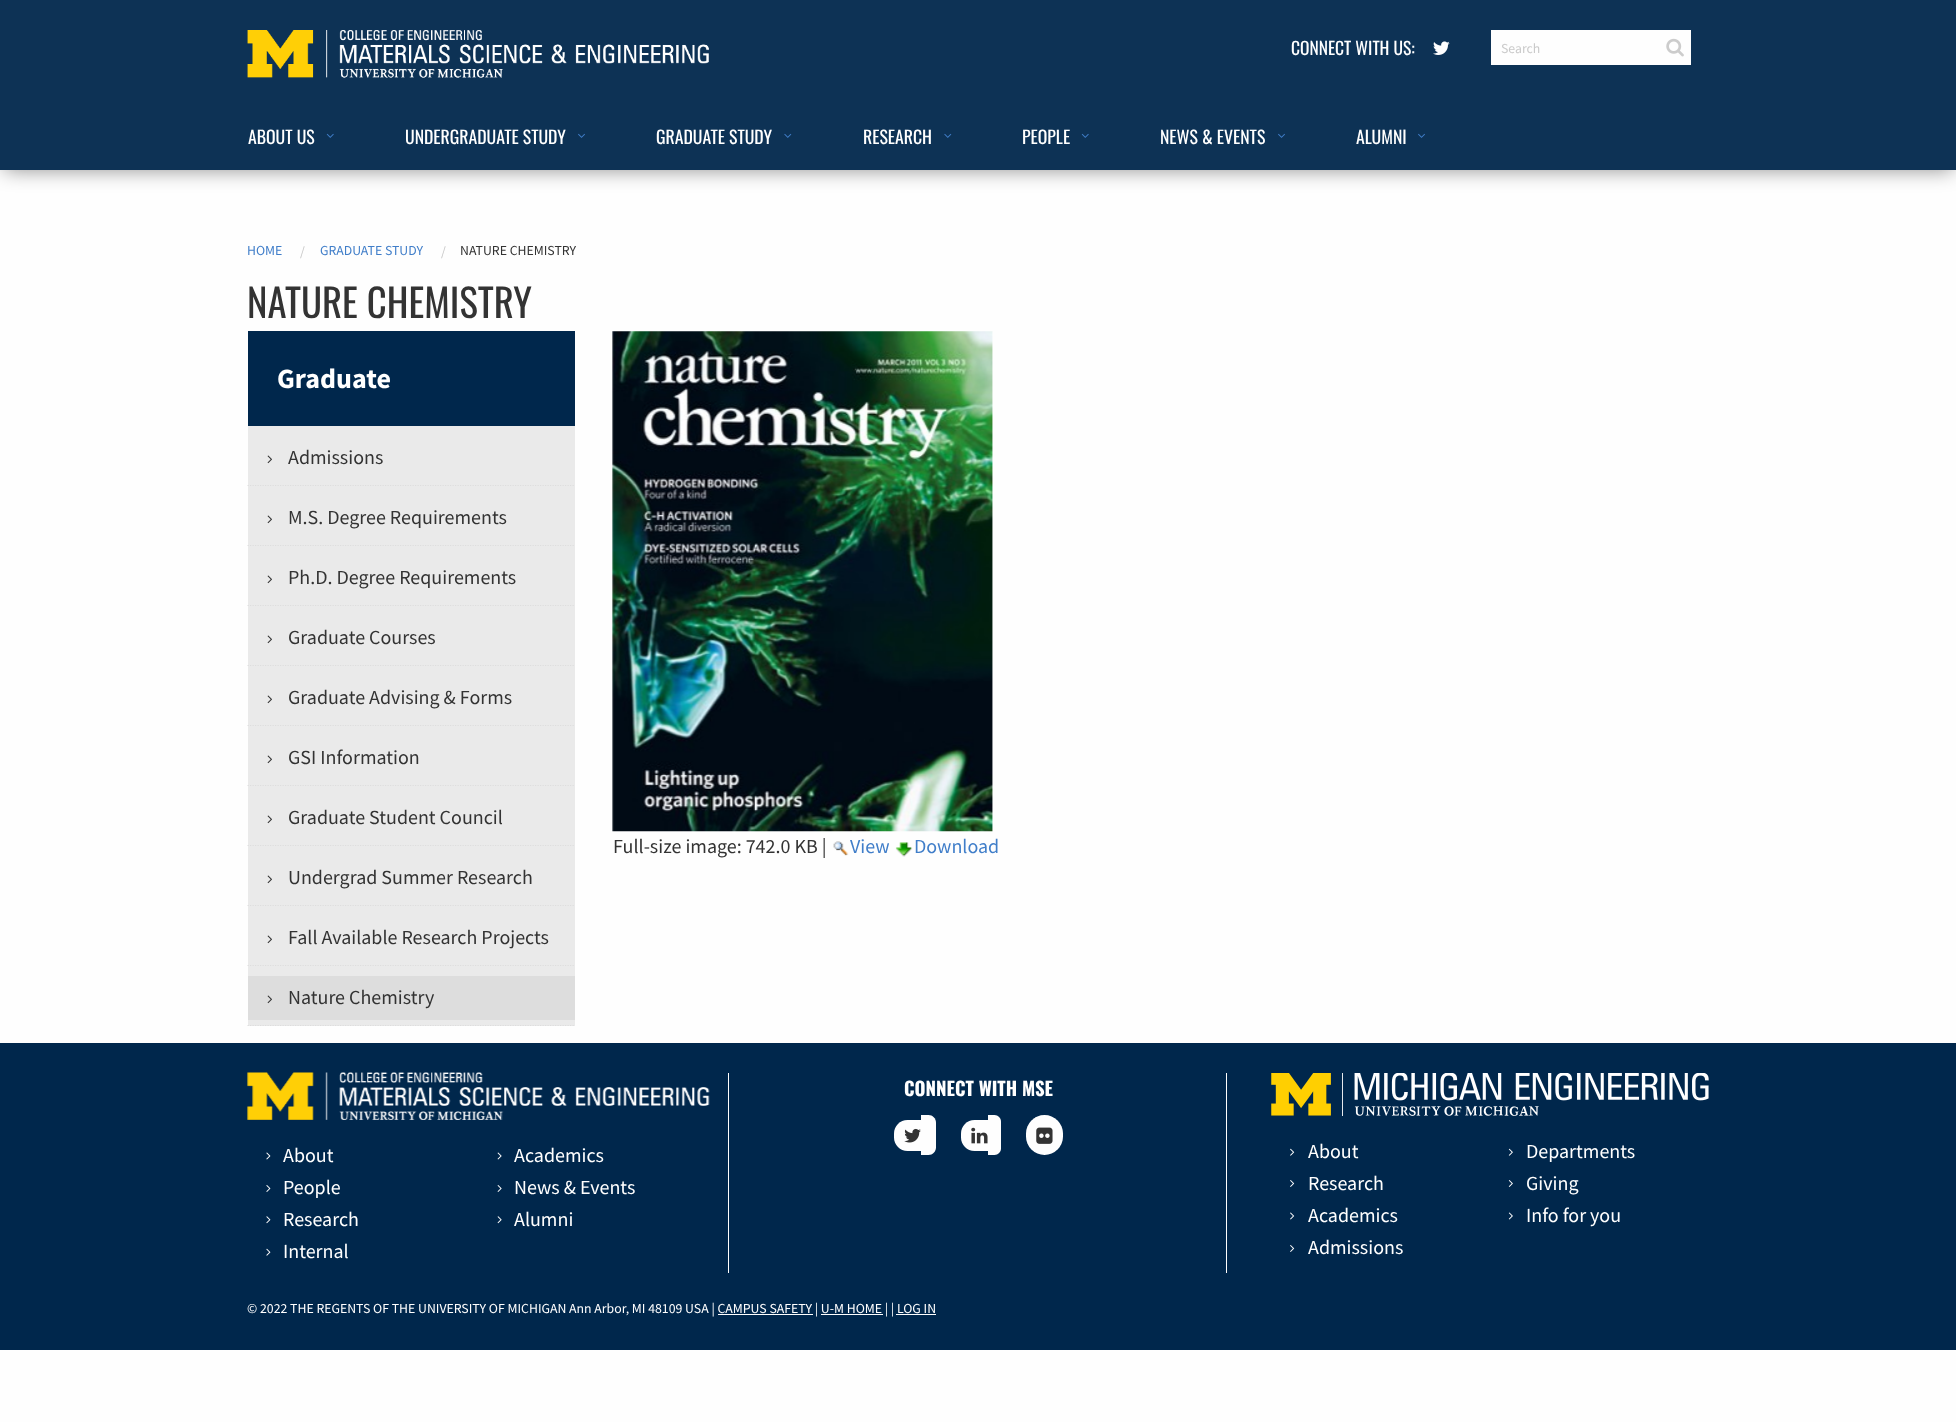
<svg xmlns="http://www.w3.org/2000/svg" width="1956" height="1422">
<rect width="100%" height="100%" fill="#fefefe"/>
<rect x="4" y="8" width="1949" height="162" fill="#00000070" filter="blur(10px)"/>
<rect width="1956" height="170" fill="#0d3255"/>
<image x="247" y="30" width="462" height="48" href="media/1.png"/>
<text x="1291" y="55" style="font-family:Oswald;font-size:17.5px;fill:#fff">CONNECT WITH US:</text>
<image x="1433" y="41" width="17" height="14" href="media/2.png"/>
<rect x="1491" y="30" width="200" height="35" fill="#fefefe"/>
<text x="1501" y="53" style="font-family:Source Sans Pro;font-size:13.75px;fill:#cacaca">Search</text>
<image x="1666" y="38" width="18" height="19" href="media/3.png"/>
<text x="248" y="144" style="font-family:Oswald;font-size:17.75px;fill:#fff">ABOUT US</text>
<image x="326" y="133" width="8" height="5" href="media/4.png"/>
<text x="405" y="144" style="font-family:Oswald;font-size:17.75px;fill:#fff">UNDERGRADUATE STUDY</text>
<image x="578" y="133" width="7" height="5" href="media/5.png"/>
<text x="656" y="144" style="font-family:Oswald;font-size:17.75px;fill:#fff">GRADUATE STUDY</text>
<image x="784" y="133" width="8" height="5" href="media/6.png"/>
<text x="863" y="144" style="font-family:Oswald;font-size:17.75px;fill:#fff">RESEARCH</text>
<image x="944" y="133" width="8" height="5" href="media/6.png"/>
<text x="1022" y="144" style="font-family:Oswald;font-size:17.75px;fill:#fff">PEOPLE</text>
<image x="1081" y="133" width="8" height="5" href="media/4.png"/>
<text x="1160" y="144" style="font-family:Oswald;font-size:17.75px;fill:#fff">NEWS &amp; EVENTS</text>
<image x="1278" y="133" width="7" height="5" href="media/5.png"/>
<text x="1356" y="144" style="font-family:Oswald;font-size:17.75px;fill:#fff">ALUMNI</text>
<image x="1418" y="133" width="7" height="5" href="media/5.png"/>
<text x="247" y="255" style="font-family:Source Sans Pro;font-size:13.75px;fill:#407ec9">HOME</text>
<text x="300" y="256" style="font-family:Source Sans Pro;font-size:13.75px;fill:#cacaca">/</text>
<text x="320" y="255" style="font-family:Source Sans Pro;font-size:13.75px;fill:#407ec9">GRADUATE STUDY</text>
<text x="441" y="256" style="font-family:Source Sans Pro;font-size:13.75px;fill:#cacaca">/</text>
<text x="460" y="255" style="font-family:Source Sans Pro;font-size:13.75px;fill:#333">NATURE CHEMISTRY</text>
<text x="247" y="318" style="font-family:Oswald;font-size:38.75px;fill:#333">NATURE CHEMISTRY</text>
<rect x="248" y="426" width="327" height="600" fill="#eaeaea"/>
<rect x="248" y="331" width="327" height="95" fill="#00274c"/>
<text x="277" y="388" style="font-family:Source Sans Pro;font-size:28px;font-weight:bold;fill:#fff">Graduate</text>
<path d="M247.5 485.5h327.5" fill="none" stroke="#ddd" stroke-width="1.2" stroke-dasharray="1.25 1.25"/>
<image x="267" y="455" width="5" height="9" href="media/7.png"/>
<text x="288" y="464" style="font-family:Source Sans Pro;font-size:20px;fill:#333">Admissions</text>
<path d="M247.5 545.5h327.5" fill="none" stroke="#ddd" stroke-width="1.2" stroke-dasharray="1.25 1.25"/>
<image x="267" y="515" width="5" height="9" href="media/7.png"/>
<text x="288" y="524" style="font-family:Source Sans Pro;font-size:20px;fill:#333">M.S. Degree Requirements</text>
<path d="M247.5 605.5h327.5" fill="none" stroke="#ddd" stroke-width="1.2" stroke-dasharray="1.25 1.25"/>
<image x="267" y="575" width="5" height="9" href="media/7.png"/>
<text x="288" y="584" style="font-family:Source Sans Pro;font-size:20px;fill:#333">Ph.D. Degree Requirements</text>
<path d="M247.5 665.5h327.5" fill="none" stroke="#ddd" stroke-width="1.2" stroke-dasharray="1.25 1.25"/>
<image x="267" y="635" width="5" height="9" href="media/7.png"/>
<text x="288" y="644" style="font-family:Source Sans Pro;font-size:20px;fill:#333">Graduate Courses</text>
<path d="M247.5 725.5h327.5" fill="none" stroke="#ddd" stroke-width="1.2" stroke-dasharray="1.25 1.25"/>
<image x="267" y="695" width="5" height="9" href="media/7.png"/>
<text x="288" y="704" style="font-family:Source Sans Pro;font-size:20px;fill:#333">Graduate Advising &amp; Forms</text>
<path d="M247.5 785.5h327.5" fill="none" stroke="#ddd" stroke-width="1.2" stroke-dasharray="1.25 1.25"/>
<image x="267" y="755" width="5" height="9" href="media/7.png"/>
<text x="288" y="764" style="font-family:Source Sans Pro;font-size:20px;fill:#333">GSI Information</text>
<path d="M247.5 845.5h327.5" fill="none" stroke="#ddd" stroke-width="1.2" stroke-dasharray="1.25 1.25"/>
<image x="267" y="815" width="5" height="9" href="media/7.png"/>
<text x="288" y="824" style="font-family:Source Sans Pro;font-size:20px;fill:#333">Graduate Student Council</text>
<path d="M247.5 905.5h327.5" fill="none" stroke="#ddd" stroke-width="1.2" stroke-dasharray="1.25 1.25"/>
<image x="267" y="875" width="5" height="9" href="media/7.png"/>
<text x="288" y="884" style="font-family:Source Sans Pro;font-size:20px;fill:#333">Undergrad Summer Research</text>
<path d="M247.5 965.5h327.5" fill="none" stroke="#ddd" stroke-width="1.2" stroke-dasharray="1.25 1.25"/>
<image x="267" y="935" width="5" height="9" href="media/7.png"/>
<text x="288" y="944" style="font-family:Source Sans Pro;font-size:20px;fill:#333">Fall Available Research Projects</text>
<path d="M247.5 1025.5h327.5" fill="none" stroke="#ddd" stroke-width="1.2" stroke-dasharray="1.25 1.25"/>
<rect x="248" y="976" width="327" height="44" fill="#ddd"/>
<image x="267" y="995" width="5" height="9" href="media/8.png"/>
<text x="288" y="1004" style="font-family:Source Sans Pro;font-size:20px;fill:#333">Nature Chemistry</text>
<image x="612" y="331" width="381" height="501" href="media/9.png"/>
<text x="613" y="853" style="font-family:Source Sans Pro;font-size:20px;fill:#333">Full-size image: 742.0 KB |</text>
<image x="833" y="841" width="16" height="15" href="media/10.png"/>
<text x="850" y="853" style="font-family:Source Sans Pro;font-size:20px;fill:#407ec9">View</text>
<image x="895" y="842" width="18" height="15" href="media/11.png"/>
<text x="914" y="853" style="font-family:Source Sans Pro;font-size:20px;fill:#407ec9">Download</text>
<rect y="1043" width="1956" height="307" fill="#00274c"/>
<rect x="1226" y="1073" width="1" height="200" fill="#fefefe"/>
<rect x="728" y="1073" width="1" height="200" fill="#fefefe"/>
<text x="904" y="1096" style="font-family:Oswald;font-size:18.75px;font-weight:bold;fill:#fff">CONNECT WITH MSE</text>
<path d="M907.5 1120h13.5v31h-13.5c-7.5 0-13.5-6-13.5-13.5v-4c0-7.5 6-13.5 13.5-13.5z" fill="#fefefe"/>
<path d="M921 1115h7.5c4 0 7.5 3.5 7.5 7.5v25c0 4-3.5 7.5-7.5 7.5h-7.5z" fill="#fefefe"/>
<image x="904" y="1128" width="17" height="15" href="media/12.png"/>
<path d="M974.5 1120h13.5v31h-13.5c-7.5 0-13.5-6-13.5-13.5v-4c0-7.5 6-13.5 13.5-13.5z" fill="#fefefe"/>
<path d="M988 1115h6.5c3.5 0 6.5 3 6.5 6.5v27c0 3.5-3 6.5-6.5 6.5h-6.5z" fill="#fefefe"/>
<image x="971" y="1127" width="17" height="17" href="media/13.png"/>
<rect x="1026" y="1115" width="37" height="40" rx="18.5" fill="#fefefe"/>
<image x="1036" y="1127" width="17" height="17" href="media/14.png"/>
<image x="247" y="1072" width="463" height="48" href="media/15.png"/>
<image x="266" y="1152" width="5" height="8" href="media/16.png"/>
<text x="283" y="1162" style="font-family:Source Sans Pro;font-size:20px;fill:#fff">About</text>
<image x="266" y="1185" width="5" height="7" href="media/17.png"/>
<text x="283" y="1194" style="font-family:Source Sans Pro;font-size:20px;fill:#fff">People</text>
<image x="266" y="1216" width="5" height="8" href="media/18.png"/>
<text x="283" y="1226" style="font-family:Source Sans Pro;font-size:20px;fill:#fff">Research</text>
<image x="266" y="1248" width="5" height="8" href="media/19.png"/>
<text x="283" y="1258" style="font-family:Source Sans Pro;font-size:20px;fill:#fff">Internal</text>
<image x="497" y="1152" width="5" height="8" href="media/20.png"/>
<text x="514" y="1162" style="font-family:Source Sans Pro;font-size:20px;fill:#fff">Academics</text>
<image x="497" y="1185" width="5" height="7" href="media/21.png"/>
<text x="514" y="1194" style="font-family:Source Sans Pro;font-size:20px;fill:#fff">News &amp; Events</text>
<image x="497" y="1216" width="5" height="8" href="media/22.png"/>
<text x="514" y="1226" style="font-family:Source Sans Pro;font-size:20px;fill:#fff">Alumni</text>
<image x="1271" y="1073" width="438" height="43" href="media/23.png"/>
<image x="1290" y="1148" width="5" height="8" href="media/24.png"/>
<text x="1308" y="1158" style="font-family:Source Sans Pro;font-size:20px;fill:#fff">About</text>
<image x="1290" y="1180" width="5" height="7" href="media/25.png"/>
<text x="1308" y="1190" style="font-family:Source Sans Pro;font-size:20px;fill:#fff">Research</text>
<image x="1290" y="1212" width="5" height="8" href="media/26.png"/>
<text x="1308" y="1222" style="font-family:Source Sans Pro;font-size:20px;fill:#fff">Academics</text>
<image x="1290" y="1245" width="5" height="7" href="media/25.png"/>
<text x="1308" y="1254" style="font-family:Source Sans Pro;font-size:20px;fill:#fff">Admissions</text>
<image x="1508" y="1148" width="5" height="8" href="media/27.png"/>
<text x="1526" y="1158" style="font-family:Source Sans Pro;font-size:20px;fill:#fff">Departments</text>
<image x="1508" y="1180" width="5" height="7" href="media/28.png"/>
<text x="1526" y="1190" style="font-family:Source Sans Pro;font-size:20px;fill:#fff">Giving</text>
<image x="1508" y="1212" width="5" height="8" href="media/29.png"/>
<text x="1526" y="1222" style="font-family:Source Sans Pro;font-size:20px;fill:#fff">Info for you</text>
<text x="247" y="1313" style="font-family:Source Sans Pro;font-size:13.75px;fill:#fff">© 2022 THE REGENTS OF THE UNIVERSITY OF MICHIGAN Ann Arbor, MI 48109 USA | CAMPUS SAFETY | U-M HOME | | LOG IN</text>
<rect x="718" y="1314" width="95" height="1" fill="#fefefe"/>
<rect x="821" y="1314" width="62" height="1" fill="#fefefe"/>
<rect x="896" y="1314" width="40" height="1" fill="#fefefe"/>
</svg>
